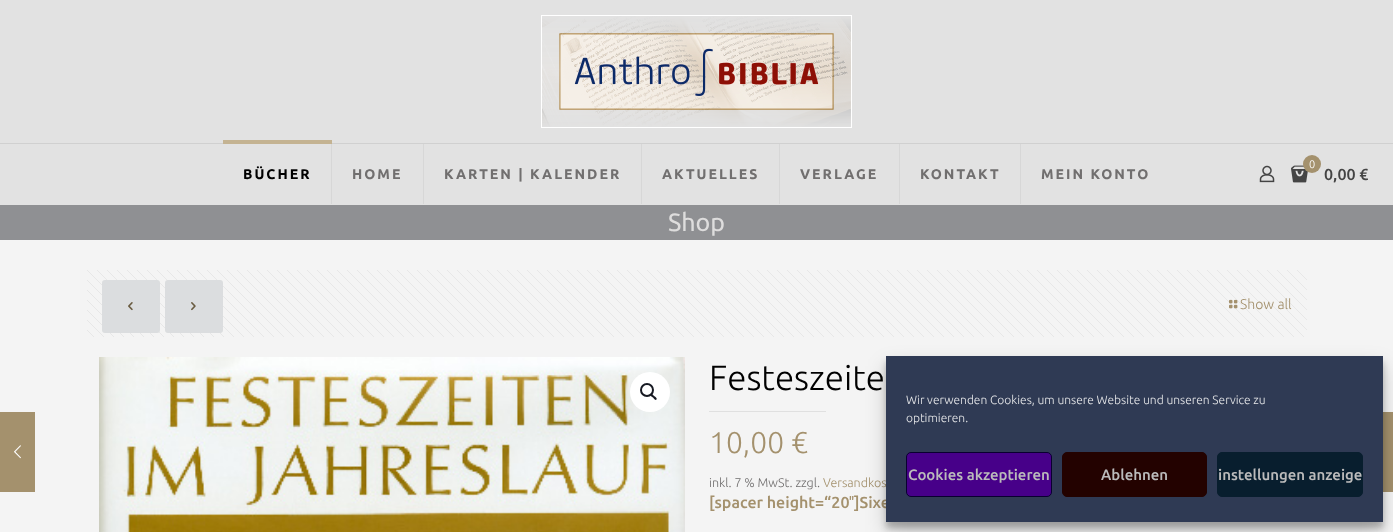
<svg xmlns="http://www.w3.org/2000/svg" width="1393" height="532">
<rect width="100%" height="100%" fill="#f4f4f4"/>
<rect width="1393" height="205" fill="#e2e2e2"/>
<rect y="143" width="1393" height="1" fill="#d0d0d0"/>
<image x="541" y="15" width="311" height="113" href="media/1.png"/>
<rect x="223" y="140" width="109" height="4" fill="#c4b392"/>
<rect x="331" y="144" width="1" height="60" fill="#d7d7d7"/>
<text x="243" y="179" style="font-family:Ubuntu;font-size:14px;font-weight:bold;letter-spacing:2px;fill:#000">BÜCHER</text>
<rect x="423" y="144" width="1" height="60" fill="#d7d7d7"/>
<text x="352" y="179" style="font-family:Ubuntu;font-size:14px;font-weight:bold;letter-spacing:2px;fill:#716f6f">HOME</text>
<rect x="641" y="144" width="1" height="60" fill="#d7d7d7"/>
<text x="444" y="179" style="font-family:Ubuntu;font-size:14px;font-weight:bold;letter-spacing:2px;fill:#716f6f">KARTEN | KALENDER</text>
<rect x="779" y="144" width="1" height="60" fill="#d7d7d7"/>
<text x="662" y="179" style="font-family:Ubuntu;font-size:14px;font-weight:bold;letter-spacing:2px;fill:#716f6f">AKTUELLES</text>
<rect x="899" y="144" width="1" height="60" fill="#d7d7d7"/>
<text x="800" y="179" style="font-family:Ubuntu;font-size:14px;font-weight:bold;letter-spacing:2px;fill:#716f6f">VERLAGE</text>
<rect x="1020" y="144" width="1" height="60" fill="#d7d7d7"/>
<text x="920" y="179" style="font-family:Ubuntu;font-size:14px;font-weight:bold;letter-spacing:2px;fill:#716f6f">KONTAKT</text>
<text x="1041" y="179" style="font-family:Ubuntu;font-size:14px;font-weight:bold;letter-spacing:2px;fill:#716f6f">MEIN KONTO</text>
<image x="1259" y="165" width="16" height="18" href="media/2.png"/>
<image x="1291" y="165" width="17" height="18" href="media/3.png"/>
<circle cx="1312" cy="164" r="9" fill="#a4916d"/>
<text x="1309" y="168" style="font-family:Ubuntu;font-size:11px;font-weight:300;fill:#fff">0</text>
<text x="1324" y="180" style="font-family:Ubuntu;font-size:16px;font-weight:500;fill:#444">0,00 €</text>
<rect y="205" width="1393" height="35" fill="#8f9093"/>
<text x="668" y="231" style="font-family:Ubuntu;font-size:25px;fill:#dedddd">Shop</text>
<image x="87" y="270" width="1220" height="67" href="media/4.png"/>
<rect x="102" y="280" width="58" height="53" rx="3" fill="#dbdddf"/>
<image x="128" y="302" width="5" height="9" href="media/5.png"/>
<rect x="165" y="280" width="58" height="53" rx="3" fill="#dbdddf"/>
<image x="191" y="302" width="5" height="9" href="media/6.png"/>
<image x="1229" y="299" width="9" height="10" href="media/7.png"/>
<text x="1240" y="309" style="font-family:Ubuntu;font-size:14px;font-weight:300;fill:#a4916d">Show all</text>
<image x="99" y="357" width="586" height="175" href="media/8.png"/>
<circle cx="650" cy="392" r="20" fill="#fff"/>
<circle cx="647" cy="390" r="6" fill="none" stroke="#161922" stroke-width="2"/>
<path d="M650.5 394c1.5-1 3 1.5 3.5 2c1 .5 3.5 2.5 2.5 3.5c-1.5 1.5-3-1.5-3.5-2c-1-.5-3.5-2.5-2.5-3.5z" fill="#161922"/>
<text x="709" y="390" style="font-family:Ubuntu;font-size:35px;font-weight:300;fill:#000">Festeszeite</text>
<rect x="709" y="411" width="117" height="1" fill="#e0e0e0"/>
<text x="709" y="453" style="font-family:Ubuntu;font-size:30px;font-weight:300;fill:#a4916d">10,00 €</text>
<text x="709" y="487" style="font-family:Ubuntu;font-size:12.5px;font-weight:300;fill:#716f6f">inkl. 7 % MwSt. zzgl.</text>
<text x="823" y="487" style="font-family:Ubuntu;font-size:12.5px;font-weight:300;fill:#a4916d">Versandkos</text>
<text x="709" y="508" style="font-family:Ubuntu;font-size:16px;font-weight:500;fill:#a4916d">[spacer height=“20</text>
<text x="849" y="508" style="font-family:Roboto;font-size:16px;font-weight:500;fill:#a4916d">″</text>
<text x="854" y="508" style="font-family:Ubuntu;font-size:16px;font-weight:500;fill:#a4916d">]Sixe</text>
<rect y="412" width="35" height="80" fill="#a4916d"/>
<image x="14" y="445" width="7" height="14" href="media/9.png"/>
<rect x="1383" y="412" width="10" height="80" fill="#a4916d"/>
<rect x="886" y="362" width="497" height="166" fill="#0000003b" filter="blur(3px)"/>
<rect x="886" y="366" width="497" height="166" fill="#00000030" filter="blur(10px)"/>
<rect x="886" y="356" width="497" height="166" fill="#2f3a54"/>
<text x="906" y="404" style="font-family:Ubuntu;font-size:12px;font-weight:300;fill:#e5e6e8">Wir verwenden Cookies, um unsere Website und unseren Service zu</text>
<text x="906" y="422" style="font-family:Ubuntu;font-size:12px;font-weight:300;fill:#e5e6e8">optimieren.</text>
<rect x="906.5" y="452.5" width="145" height="44" rx="4.5" fill="#470089" stroke="#090030"/>
<text x="908" y="480" style="font-family:Ubuntu;font-size:15px;font-weight:500;fill:#bbb">Cookies akzeptieren</text>
<rect x="1062.5" y="452.5" width="144" height="44" rx="4.5" fill="#230200" stroke="#230200"/>
<text x="1101" y="480" style="font-family:Ubuntu;font-size:15px;font-weight:500;fill:#bbb">Ablehnen</text>
<rect x="1217.5" y="452.5" width="145" height="44" rx="4.5" fill="#081e2e" stroke="#081e2e"/>
<text x="1218" y="480" style="font-family:Ubuntu;font-size:15px;font-weight:500;fill:#bbb">instellungen anzeige</text>
</svg>
